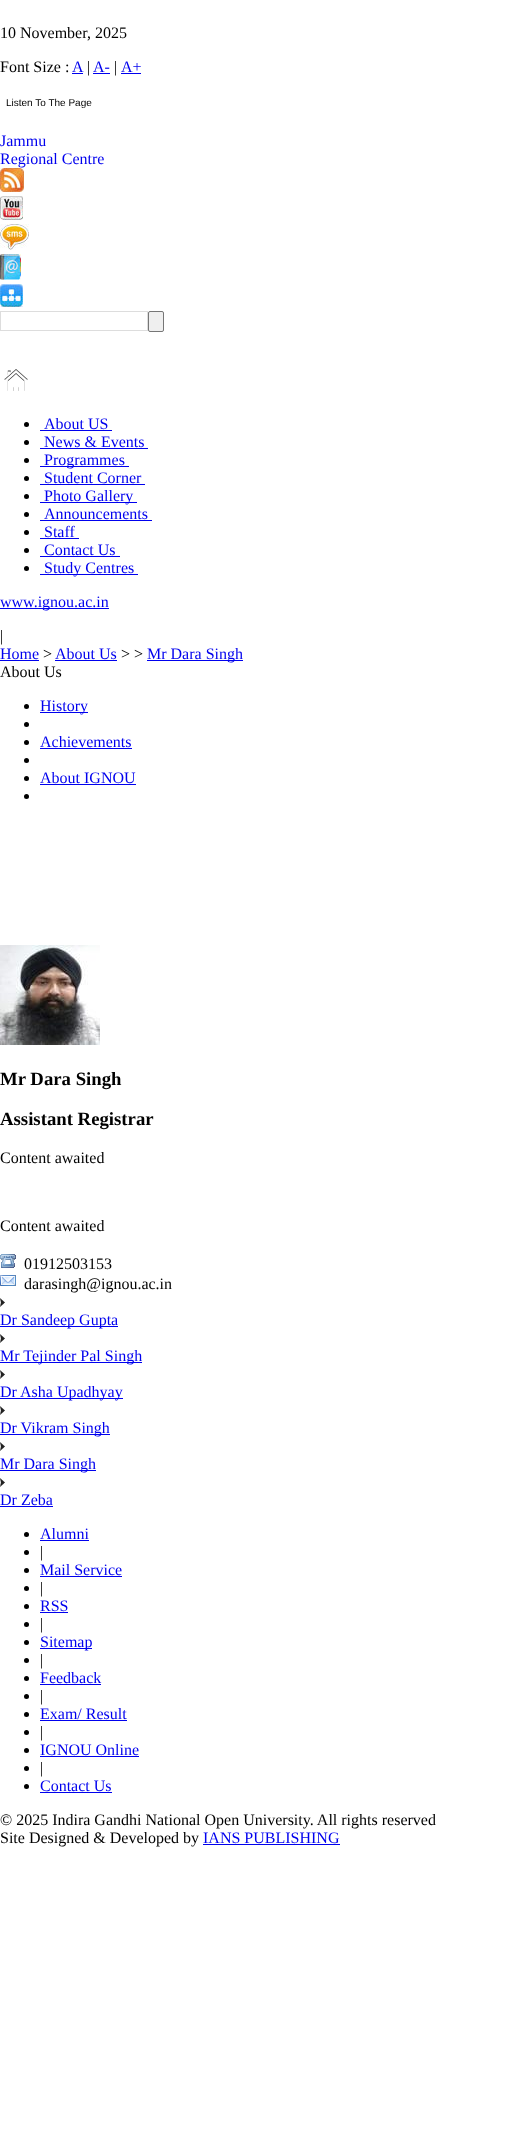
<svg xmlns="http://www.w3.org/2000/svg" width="529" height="2144">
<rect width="100%" height="100%" fill="#fff"/>
<text x="0" y="38" style="font-family:Liberation Serif;font-size:16px;fill:#000">10 November, 2025</text>
<text x="0" y="72" style="font-family:Liberation Serif;font-size:16px;fill:#000">Font Size :</text>
<text x="72" y="72" style="font-family:Liberation Serif;font-size:16px;fill:#00e">A</text>
<rect x="72" y="73" width="11" height="1" fill="#00e"/>
<text x="87" y="72" style="font-family:Liberation Serif;font-size:16px;fill:#000">|</text>
<text x="93" y="72" style="font-family:Liberation Serif;font-size:16px;fill:#00e">A-</text>
<rect x="93" y="73" width="17" height="1" fill="#00e"/>
<text x="114" y="72" style="font-family:Liberation Serif;font-size:16px;fill:#000">|</text>
<text x="121" y="72" style="font-family:Liberation Serif;font-size:16px;fill:#00e">A+</text>
<rect x="121" y="73" width="20" height="1" fill="#00e"/>
<text x="6" y="106" style="font-family:Liberation Sans;font-size:10px;fill:#000">Listen To The Page</text>
<text x="0" y="146" style="font-family:Liberation Serif;font-size:16px;fill:#00e">Jammu</text>
<text x="0" y="164" style="font-family:Liberation Serif;font-size:16px;fill:#00e">Regional Centre</text>
<image x="0" y="168" width="24" height="24" href="media/1.png"/>
<image x="0" y="196" width="23" height="24" href="media/2.png"/>
<image x="0" y="224" width="29" height="26" href="media/3.png"/>
<image x="0" y="254" width="21" height="26" href="media/4.png"/>
<image x="0" y="284" width="23" height="23" href="media/5.png"/>
<rect x="0.5" y="311.5" width="147" height="19" fill="none" stroke="#ddd"/>
<rect x="148.5" y="311.5" width="15" height="20" rx="1.5" fill="#efefef" stroke="#767676"/>
<image x="4" y="369" width="24" height="22" href="media/6.png"/>
<circle cx="26.5" cy="424.5" r="2.5" fill="#000"/>
<text x="44" y="429" style="font-family:Liberation Serif;font-size:16px;fill:#00e">About US</text>
<rect x="40" y="430" width="72" height="1" fill="#00e"/>
<circle cx="26.5" cy="442.5" r="2.5" fill="#000"/>
<text x="44" y="447" style="font-family:Liberation Serif;font-size:16px;fill:#00e">News &amp; Events</text>
<rect x="40" y="448" width="108" height="1" fill="#00e"/>
<circle cx="26.5" cy="460.5" r="2.5" fill="#000"/>
<rect x="40" y="466" width="89" height="1" fill="#00e"/>
<text x="44" y="465" style="font-family:Liberation Serif;font-size:16px;fill:#00e">Programmes</text>
<circle cx="26.5" cy="478.5" r="2.5" fill="#000"/>
<text x="44" y="483" style="font-family:Liberation Serif;font-size:16px;fill:#00e">Student Corner</text>
<rect x="40" y="484" width="105" height="1" fill="#00e"/>
<circle cx="26.5" cy="496.5" r="2.5" fill="#000"/>
<rect x="40" y="502" width="97" height="1" fill="#00e"/>
<text x="44" y="501" style="font-family:Liberation Serif;font-size:16px;fill:#00e">Photo Gallery</text>
<circle cx="26.5" cy="514.5" r="2.5" fill="#000"/>
<text x="44" y="519" style="font-family:Liberation Serif;font-size:16px;fill:#00e">Announcements</text>
<rect x="40" y="520" width="112" height="1" fill="#00e"/>
<circle cx="26.5" cy="532.5" r="2.5" fill="#000"/>
<text x="44" y="537" style="font-family:Liberation Serif;font-size:16px;fill:#00e">Staff</text>
<rect x="40" y="538" width="39" height="1" fill="#00e"/>
<circle cx="26.5" cy="550.5" r="2.5" fill="#000"/>
<text x="44" y="555" style="font-family:Liberation Serif;font-size:16px;fill:#00e">Contact Us</text>
<rect x="40" y="556" width="80" height="1" fill="#00e"/>
<circle cx="26.5" cy="568.5" r="2.5" fill="#000"/>
<rect x="40" y="574" width="98" height="1" fill="#00e"/>
<text x="44" y="573" style="font-family:Liberation Serif;font-size:16px;fill:#00e">Study Centres</text>
<rect y="608" width="109" height="1" fill="#00e"/>
<text x="0" y="607" style="font-family:Liberation Serif;font-size:16px;fill:#00e">www.ignou.ac.in</text>
<text x="0" y="641" style="font-family:Liberation Serif;font-size:16px;fill:#000">|</text>
<text x="0" y="659" style="font-family:Liberation Serif;font-size:16px;fill:#00e">Home</text>
<rect y="660" width="39" height="1" fill="#00e"/>
<text x="43" y="659" style="font-family:Liberation Serif;font-size:16px;fill:#000">&gt;</text>
<text x="55" y="659" style="font-family:Liberation Serif;font-size:16px;fill:#00e">About Us</text>
<rect x="55" y="660" width="62" height="1" fill="#00e"/>
<text x="121" y="659" style="font-family:Liberation Serif;font-size:16px;fill:#000">&gt; &gt;</text>
<rect x="147" y="660" width="96" height="1" fill="#00e"/>
<text x="147" y="659" style="font-family:Liberation Serif;font-size:16px;fill:#00e">Mr Dara Singh</text>
<text x="0" y="677" style="font-family:Liberation Serif;font-size:16px;fill:#000">About Us</text>
<circle cx="26.5" cy="706.5" r="2.5" fill="#000"/>
<rect x="40" y="712" width="48" height="1" fill="#00e"/>
<text x="40" y="711" style="font-family:Liberation Serif;font-size:16px;fill:#00e">History</text>
<circle cx="26.5" cy="724.5" r="2.5" fill="#000"/>
<circle cx="26.5" cy="742.5" r="2.5" fill="#000"/>
<text x="40" y="747" style="font-family:Liberation Serif;font-size:16px;fill:#00e">Achievements</text>
<rect x="40" y="748" width="92" height="1" fill="#00e"/>
<circle cx="26.5" cy="760.5" r="2.5" fill="#000"/>
<circle cx="26.5" cy="778.5" r="2.5" fill="#000"/>
<text x="40" y="783" style="font-family:Liberation Serif;font-size:16px;fill:#00e">About IGNOU</text>
<rect x="40" y="784" width="96" height="1" fill="#00e"/>
<circle cx="26.5" cy="796.5" r="2.5" fill="#000"/>
<image x="0" y="945" width="100" height="100" href="media/7.png"/>
<text x="0" y="1085" style="font-family:Liberation Serif;font-size:18.75px;font-weight:bold;fill:#000">Mr Dara Singh</text>
<text x="0" y="1125" style="font-family:Liberation Serif;font-size:18.75px;font-weight:bold;fill:#000">Assistant Registrar</text>
<text x="0" y="1163" style="font-family:Liberation Serif;font-size:16px;fill:#000">Content awaited</text>
<text x="0" y="1231" style="font-family:Liberation Serif;font-size:16px;fill:#000">Content awaited</text>
<image x="0" y="1254" width="16" height="14" href="media/8.png"/>
<text x="24" y="1269" style="font-family:Liberation Serif;font-size:16px;fill:#000">01912503153</text>
<image x="0" y="1275" width="16" height="11" href="media/9.png"/>
<text x="24" y="1289" style="font-family:Liberation Serif;font-size:16px;fill:#000">darasingh@ignou.ac.in</text>
<image x="0" y="1298" width="5" height="9" href="media/10.png"/>
<rect y="1326" width="118" height="1" fill="#00e"/>
<text x="0" y="1325" style="font-family:Liberation Serif;font-size:16px;fill:#00e">Dr Sandeep Gupta</text>
<image x="0" y="1334" width="5" height="9" href="media/10.png"/>
<rect y="1362" width="142" height="1" fill="#00e"/>
<text x="0" y="1361" style="font-family:Liberation Serif;font-size:16px;fill:#00e">Mr Tejinder Pal Singh</text>
<image x="0" y="1370" width="5" height="9" href="media/10.png"/>
<rect y="1398" width="123" height="1" fill="#00e"/>
<text x="0" y="1397" style="font-family:Liberation Serif;font-size:16px;fill:#00e">Dr Asha Upadhyay</text>
<image x="0" y="1406" width="5" height="9" href="media/10.png"/>
<rect y="1434" width="110" height="1" fill="#00e"/>
<text x="0" y="1433" style="font-family:Liberation Serif;font-size:16px;fill:#00e">Dr Vikram Singh</text>
<image x="0" y="1442" width="5" height="9" href="media/10.png"/>
<rect y="1470" width="96" height="1" fill="#00e"/>
<text x="0" y="1469" style="font-family:Liberation Serif;font-size:16px;fill:#00e">Mr Dara Singh</text>
<image x="0" y="1478" width="5" height="9" href="media/10.png"/>
<text x="0" y="1505" style="font-family:Liberation Serif;font-size:16px;fill:#00e">Dr Zeba</text>
<rect y="1506" width="53" height="1" fill="#00e"/>
<circle cx="26.5" cy="1534.5" r="2.5" fill="#000"/>
<text x="40" y="1539" style="font-family:Liberation Serif;font-size:16px;fill:#00e">Alumni</text>
<rect x="40" y="1540" width="49" height="1" fill="#00e"/>
<circle cx="26.5" cy="1552.5" r="2.5" fill="#000"/>
<text x="40" y="1557" style="font-family:Liberation Serif;font-size:16px;fill:#000">|</text>
<circle cx="26.5" cy="1570.5" r="2.5" fill="#000"/>
<text x="40" y="1575" style="font-family:Liberation Serif;font-size:16px;fill:#00e">Mail Service</text>
<rect x="40" y="1576" width="82" height="1" fill="#00e"/>
<circle cx="26.5" cy="1588.5" r="2.5" fill="#000"/>
<text x="40" y="1593" style="font-family:Liberation Serif;font-size:16px;fill:#000">|</text>
<circle cx="26.5" cy="1606.5" r="2.5" fill="#000"/>
<text x="40" y="1611" style="font-family:Liberation Serif;font-size:16px;fill:#00e">RSS</text>
<rect x="40" y="1612" width="28" height="1" fill="#00e"/>
<circle cx="26.5" cy="1624.5" r="2.5" fill="#000"/>
<text x="40" y="1629" style="font-family:Liberation Serif;font-size:16px;fill:#000">|</text>
<circle cx="26.5" cy="1642.5" r="2.5" fill="#000"/>
<rect x="40" y="1648" width="52" height="1" fill="#00e"/>
<text x="40" y="1647" style="font-family:Liberation Serif;font-size:16px;fill:#00e">Sitemap</text>
<circle cx="26.5" cy="1660.5" r="2.5" fill="#000"/>
<text x="40" y="1665" style="font-family:Liberation Serif;font-size:16px;fill:#000">|</text>
<circle cx="26.5" cy="1678.5" r="2.5" fill="#000"/>
<text x="40" y="1683" style="font-family:Liberation Serif;font-size:16px;fill:#00e">Feedback</text>
<rect x="40" y="1684" width="61" height="1" fill="#00e"/>
<circle cx="26.5" cy="1696.5" r="2.5" fill="#000"/>
<text x="40" y="1701" style="font-family:Liberation Serif;font-size:16px;fill:#000">|</text>
<circle cx="26.5" cy="1714.5" r="2.5" fill="#000"/>
<text x="40" y="1719" style="font-family:Liberation Serif;font-size:16px;fill:#00e">Exam/ Result</text>
<rect x="40" y="1720" width="87" height="1" fill="#00e"/>
<circle cx="26.5" cy="1732.5" r="2.5" fill="#000"/>
<text x="40" y="1737" style="font-family:Liberation Serif;font-size:16px;fill:#000">|</text>
<circle cx="26.5" cy="1750.5" r="2.5" fill="#000"/>
<text x="40" y="1755" style="font-family:Liberation Serif;font-size:16px;fill:#00e">IGNOU Online</text>
<rect x="40" y="1756" width="99" height="1" fill="#00e"/>
<circle cx="26.5" cy="1768.5" r="2.5" fill="#000"/>
<text x="40" y="1773" style="font-family:Liberation Serif;font-size:16px;fill:#000">|</text>
<circle cx="26.5" cy="1786.5" r="2.5" fill="#000"/>
<text x="40" y="1791" style="font-family:Liberation Serif;font-size:16px;fill:#00e">Contact Us</text>
<rect x="40" y="1792" width="72" height="1" fill="#00e"/>
<text x="0" y="1825" style="font-family:Liberation Serif;font-size:16px;fill:#000">© 2025 Indira Gandhi National Open University. All rights reserved</text>
<text x="0" y="1843" style="font-family:Liberation Serif;font-size:16px;fill:#000">Site Designed &amp; Developed by</text>
<text x="203" y="1843" style="font-family:Liberation Serif;font-size:16px;fill:#00e">IANS PUBLISHING</text>
<rect x="203" y="1844" width="137" height="1" fill="#00e"/>
</svg>
